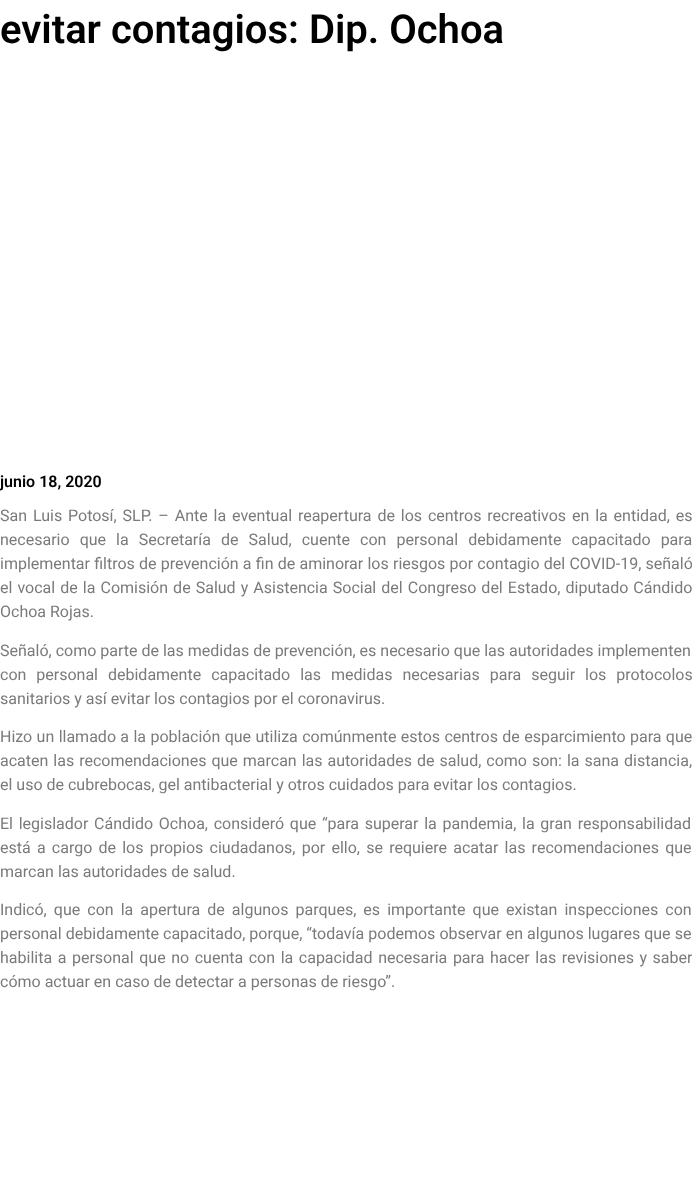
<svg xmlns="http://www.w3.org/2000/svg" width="692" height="1196">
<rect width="100%" height="100%" fill="#fff"/>
<text x="0" y="43" style="font-family:Roboto;font-size:40px;font-weight:600;fill:#000">evitar contagios: Dip. Ochoa</text>
<text x="0" y="487" style="font-family:Roboto;font-size:16px;font-weight:600;fill:#000">junio 18, 2020</text>
<text x="0" y="521" word-spacing="1.9" style="font-family:Roboto;font-size:16px;fill:#7a7a7a">San Luis Potosí, SLP. – Ante la eventual reapertura de los centros recreativos en la entidad, es</text>
<text x="0" y="545" word-spacing="6.1" style="font-family:Roboto;font-size:16px;fill:#7a7a7a">necesario que la Secretaría de Salud, cuente con personal debidamente capacitado para</text>
<text x="0" y="569" word-spacing="0.25" style="font-family:Roboto;font-size:16px;fill:#7a7a7a">implementar filtros de prevención a fin de aminorar los riesgos por contagio del COVID-19, señaló</text>
<text x="0" y="593" word-spacing="1.1" style="font-family:Roboto;font-size:16px;fill:#7a7a7a">el vocal de la Comisión de Salud y Asistencia Social del Congreso del Estado, diputado Cándido</text>
<text x="0" y="617" style="font-family:Roboto;font-size:16px;fill:#7a7a7a">Ochoa Rojas.</text>
<text x="0" y="656" style="font-family:Roboto;font-size:16px;fill:#7a7a7a">Señaló, como parte de las medidas de prevención, es necesario que las autoridades implementen</text>
<text x="0" y="680" word-spacing="6" style="font-family:Roboto;font-size:16px;fill:#7a7a7a">con personal debidamente capacitado las medidas necesarias para seguir los protocolos</text>
<text x="0" y="704" style="font-family:Roboto;font-size:16px;fill:#7a7a7a">sanitarios y así evitar los contagios por el coronavirus.</text>
<text x="0" y="742" word-spacing="0.4" style="font-family:Roboto;font-size:16px;fill:#7a7a7a">Hizo un llamado a la población que utiliza comúnmente estos centros de esparcimiento para que</text>
<text x="0" y="766" word-spacing="1" style="font-family:Roboto;font-size:16px;fill:#7a7a7a">acaten las recomendaciones que marcan las autoridades de salud, como son: la sana distancia,</text>
<text x="0" y="790" style="font-family:Roboto;font-size:16px;fill:#7a7a7a">el uso de cubrebocas, gel antibacterial y otros cuidados para evitar los contagios.</text>
<text x="0" y="829" word-spacing="1.75" style="font-family:Roboto;font-size:16px;fill:#7a7a7a">El legislador Cándido Ochoa, consideró que “para superar la pandemia, la gran responsabilidad</text>
<text x="0" y="853" word-spacing="2.25" style="font-family:Roboto;font-size:16px;fill:#7a7a7a">está a cargo de los propios ciudadanos, por ello, se requiere acatar las recomendaciones que</text>
<text x="0" y="877" style="font-family:Roboto;font-size:16px;fill:#7a7a7a">marcan las autoridades de salud.</text>
<text x="0" y="915" word-spacing="3.1" style="font-family:Roboto;font-size:16px;fill:#7a7a7a">Indicó, que con la apertura de algunos parques, es importante que existan inspecciones con</text>
<text x="0" y="939" word-spacing="0.1" style="font-family:Roboto;font-size:16px;fill:#7a7a7a">personal debidamente capacitado, porque, “todavía podemos observar en algunos lugares que se</text>
<text x="0" y="963" word-spacing="1.6" style="font-family:Roboto;font-size:16px;fill:#7a7a7a">habilita a personal que no cuenta con la capacidad necesaria para hacer las revisiones y saber</text>
<text x="0" y="987" style="font-family:Roboto;font-size:16px;fill:#7a7a7a">cómo actuar en caso de detectar a personas de riesgo”.</text>
</svg>
